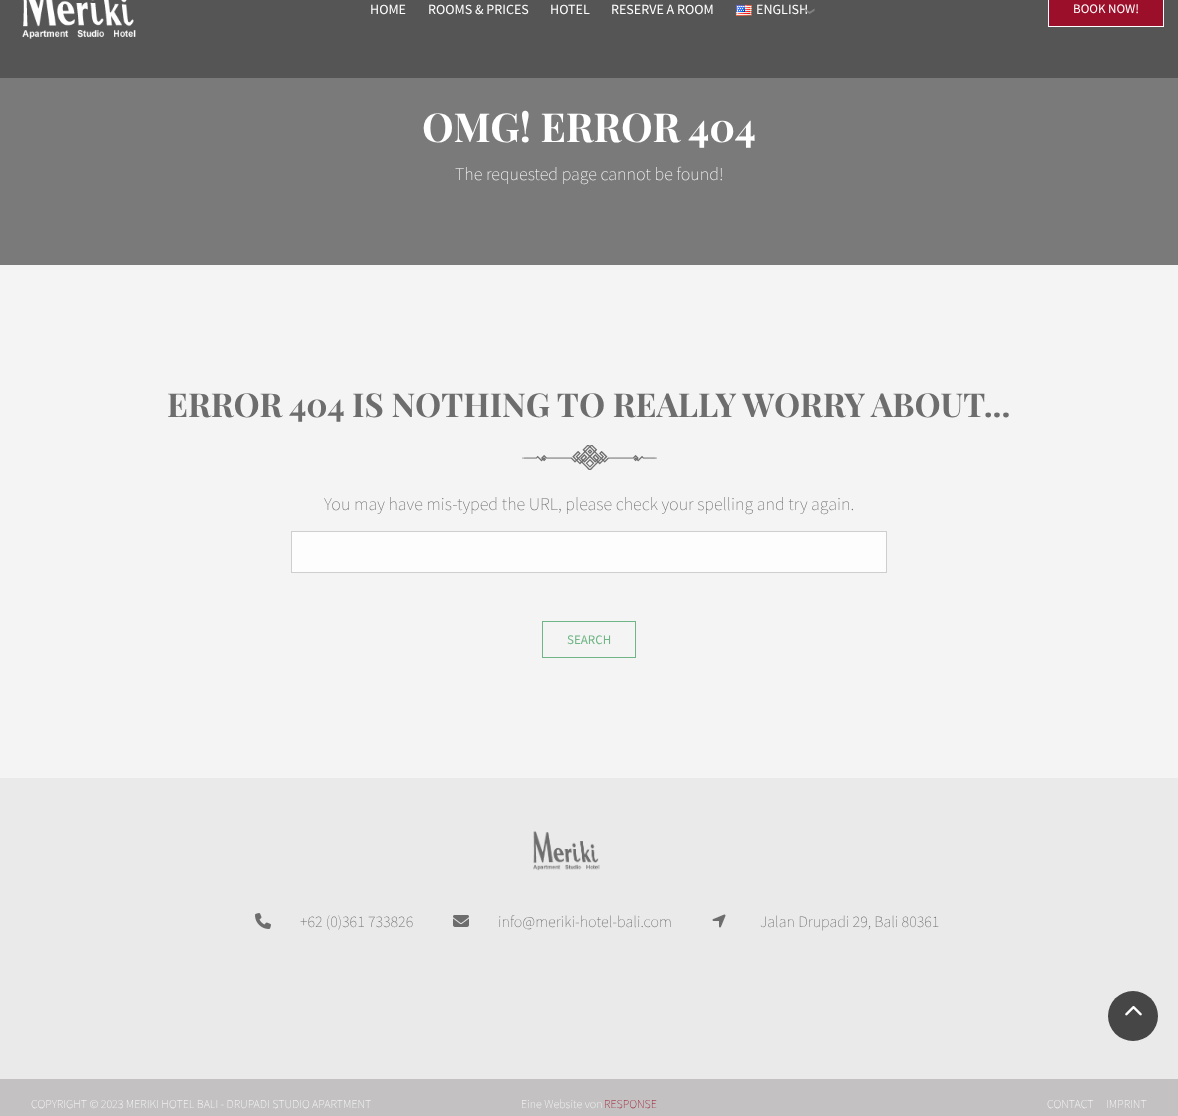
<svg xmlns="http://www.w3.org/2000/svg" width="1178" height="1116">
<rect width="100%" height="100%" fill="#f4f4f4"/>
<rect width="1178" height="78" fill="#555"/>
<image x="22" y="0" width="114" height="39" href="media/1.png"/>
<text x="370" y="14" style="font-family:Source Sans Pro;font-size:14px;fill:#fff">HOME</text>
<text x="428" y="14" style="font-family:Source Sans Pro;font-size:14px;fill:#fff">ROOMS &amp; PRICES</text>
<text x="550" y="14" style="font-family:Source Sans Pro;font-size:14px;fill:#fff">HOTEL</text>
<text x="611" y="14" style="font-family:Source Sans Pro;font-size:14px;fill:#fff">RESERVE A ROOM</text>
<image x="735" y="4" width="17" height="12" href="media/2.png"/>
<text x="756" y="14" style="font-family:Source Sans Pro;font-size:14px;fill:#fff">ENGLISH</text>
<text x="807" y="7" transform="rotate(90 807 7)" style="font-family:DejaVu Sans;font-size:10px;fill:#808080">❯</text>
<rect x="1048.5" y="-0.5" width="115" height="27" fill="#9b0f2a" stroke="#fff"/>
<text x="1073" y="13" style="font-family:Source Sans Pro;font-size:13px;fill:#fff">BOOK NOW!</text>
<rect y="78" width="1178" height="187" fill="#7a7a7a"/>
<text x="422" y="142" style="font-family:Playfair Display;font-size:40px;font-weight:bold;fill:#fff">OMG! ERROR 404</text>
<text x="455" y="180" style="font-family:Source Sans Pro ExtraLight;font-size:18px;font-weight:200;fill:#fff">The requested page cannot be found!</text>
<text x="167" y="417" style="font-family:Playfair Display;font-size:33px;font-weight:bold;fill:#6d6d6d">ERROR 404 IS NOTHING TO REALLY WORRY ABOUT...</text>
<image x="522" y="445" width="135" height="25" href="media/3.png"/>
<text x="324" y="510" style="font-family:Source Sans Pro ExtraLight;font-size:18px;font-weight:200;fill:#6d6d6d">You may have mis-typed the URL, please check your spelling and try again.</text>
<rect x="291.5" y="531.5" width="595" height="41" fill="#fdfdfd" stroke="#cececf"/>
<rect x="542.5" y="621.5" width="93" height="36" fill="none" stroke="#6fb586"/>
<text x="567" y="644" style="font-family:Source Sans Pro;font-size:13px;fill:#6fb586">SEARCH</text>
<rect y="778" width="1178" height="301" fill="#eaeaea"/>
<image x="533" y="831" width="67" height="40" href="media/4.png"/>
<image x="255" y="913" width="16" height="16" href="media/5.png"/>
<text x="300" y="927" style="font-family:Source Sans Pro ExtraLight;font-size:16px;font-weight:200;fill:#6d6d6d">+62 (0)361 733826</text>
<image x="453" y="915" width="16" height="12" href="media/6.png"/>
<text x="498" y="927" style="font-family:Source Sans Pro ExtraLight;font-size:16px;font-weight:200;fill:#6d6d6d">info@meriki-hotel-bali.com</text>
<image x="712" y="914" width="14" height="14" href="media/7.png"/>
<text x="760" y="927" style="font-family:Source Sans Pro ExtraLight;font-size:16px;font-weight:200;fill:#6d6d6d">Jalan Drupadi 29, Bali 80361</text>
<rect y="1079" width="1178" height="37" fill="#c3c1c1"/>
<text x="31" y="1108" style="font-family:Source Sans Pro ExtraLight;font-size:12px;font-weight:200;fill:#fff">COPYRIGHT © 2023 MERIKI HOTEL BALI - DRUPADI STUDIO APARTMENT</text>
<text x="521" y="1108" style="font-family:Source Sans Pro ExtraLight;font-size:12px;font-weight:200;fill:#fff">Eine Website von</text>
<text x="604" y="1108" style="font-family:Source Sans Pro ExtraLight;font-size:12px;font-weight:200;fill:#9b0f2a">RESPONSE</text>
<text x="1047" y="1108" style="font-family:Source Sans Pro ExtraLight;font-size:12px;font-weight:200;fill:#fff">CONTACT</text>
<text x="1106" y="1108" style="font-family:Source Sans Pro ExtraLight;font-size:12px;font-weight:200;fill:#fff">IMPRINT</text>
<circle cx="1133" cy="1016" r="25" fill="#464646"/>
<image x="1125" y="1005" width="17" height="11" href="media/8.png"/>
</svg>
